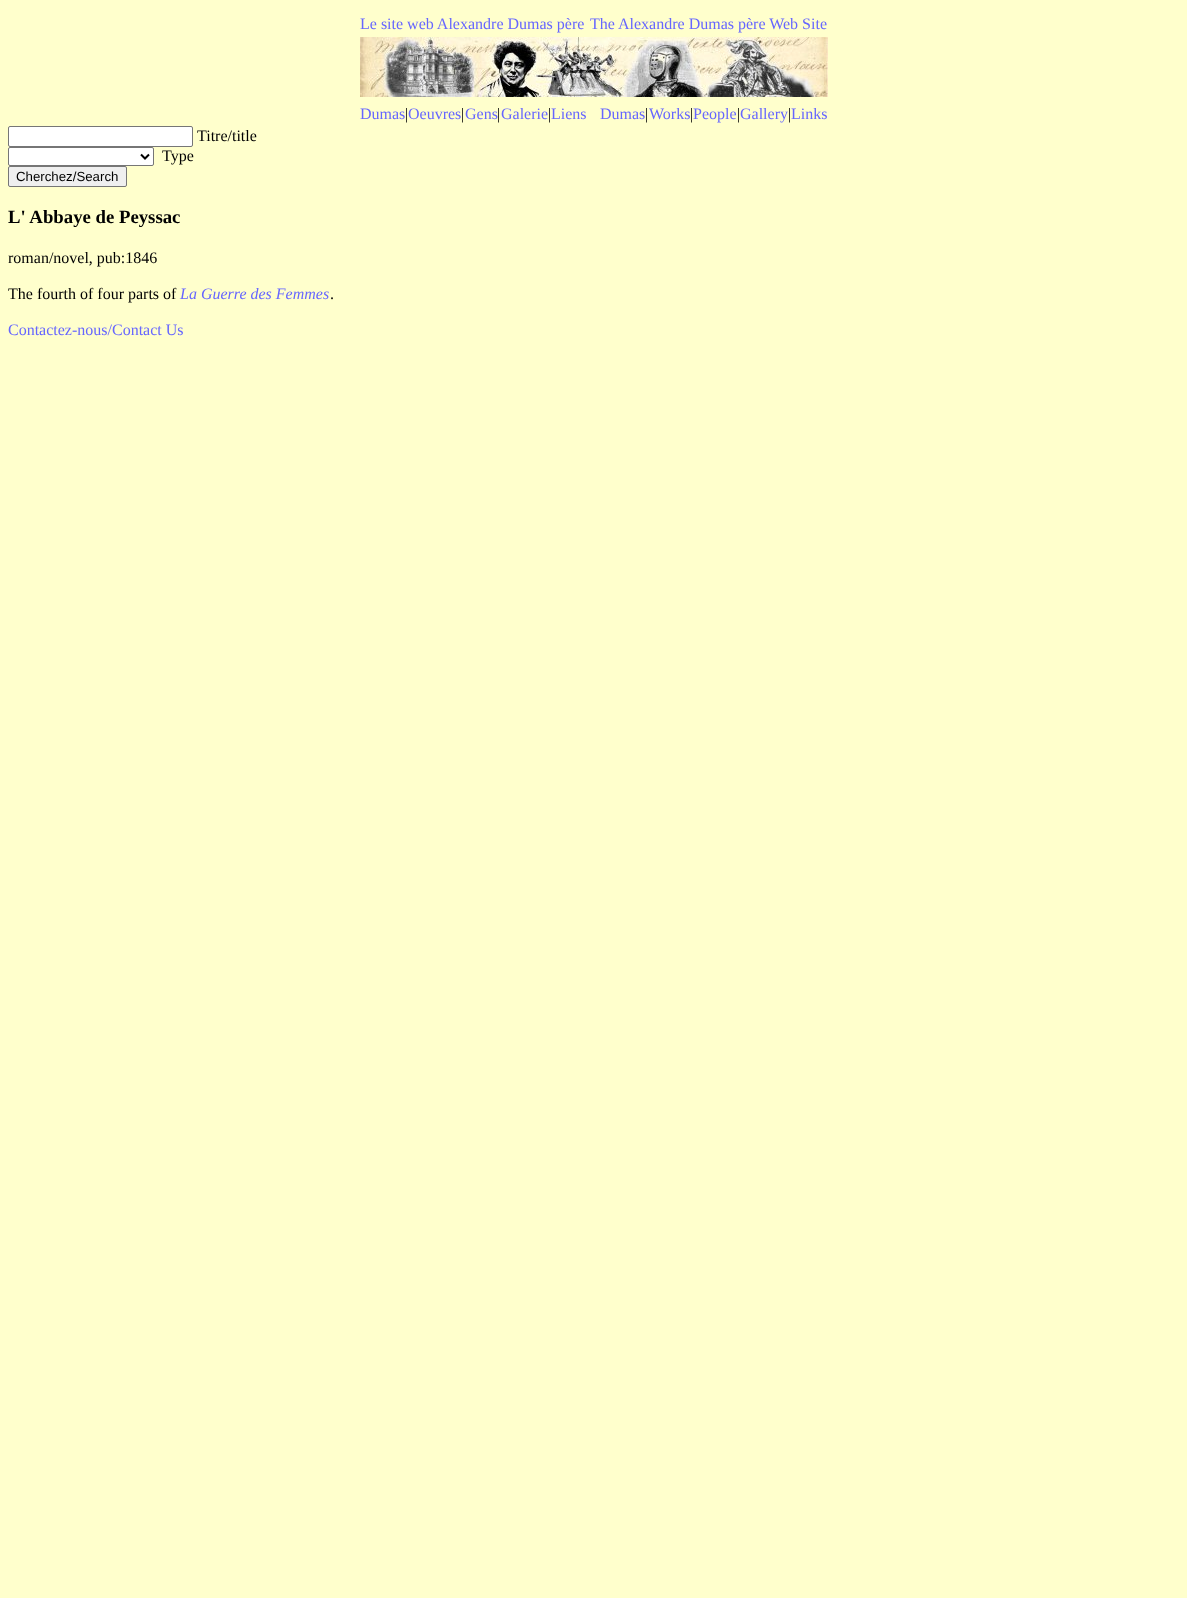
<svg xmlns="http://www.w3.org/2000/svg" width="1187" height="1598">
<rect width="100%" height="100%" fill="#ffc"/>
<text x="360" y="29" style="font-family:Liberation Serif;font-size:16px;fill:#66f">Le site web Alexandre Dumas père</text>
<text x="590" y="29" style="font-family:Liberation Serif;font-size:16px;fill:#66f">The Alexandre Dumas père Web Site</text>
<image x="360" y="37" width="468" height="60" href="media/1.png"/>
<text x="360" y="119" style="font-family:Liberation Serif;font-size:16px;fill:#66f">Dumas</text>
<text x="405" y="119" style="font-family:Liberation Serif;font-size:16px;fill:#000">|</text>
<text x="408" y="119" style="font-family:Liberation Serif;font-size:16px;fill:#66f">Oeuvres</text>
<text x="461" y="119" style="font-family:Liberation Serif;font-size:16px;fill:#000">|</text>
<text x="465" y="119" style="font-family:Liberation Serif;font-size:16px;fill:#66f">Gens</text>
<text x="497" y="119" style="font-family:Liberation Serif;font-size:16px;fill:#000">|</text>
<text x="501" y="119" style="font-family:Liberation Serif;font-size:16px;fill:#66f">Galerie</text>
<text x="548" y="119" style="font-family:Liberation Serif;font-size:16px;fill:#000">|</text>
<text x="551" y="119" style="font-family:Liberation Serif;font-size:16px;fill:#66f">Liens</text>
<text x="600" y="119" style="font-family:Liberation Serif;font-size:16px;fill:#66f">Dumas</text>
<text x="645" y="119" style="font-family:Liberation Serif;font-size:16px;fill:#000">|</text>
<text x="649" y="119" style="font-family:Liberation Serif;font-size:16px;fill:#66f">Works</text>
<text x="690" y="119" style="font-family:Liberation Serif;font-size:16px;fill:#000">|</text>
<text x="693" y="119" style="font-family:Liberation Serif;font-size:16px;fill:#66f">People</text>
<text x="737" y="119" style="font-family:Liberation Serif;font-size:16px;fill:#000">|</text>
<text x="740" y="119" style="font-family:Liberation Serif;font-size:16px;fill:#66f">Gallery</text>
<text x="788" y="119" style="font-family:Liberation Serif;font-size:16px;fill:#000">|</text>
<text x="791" y="119" style="font-family:Liberation Serif;font-size:16px;fill:#66f">Links</text>
<rect x="8.5" y="126.5" width="184" height="20" rx="1.5" fill="#fff" stroke="#767676"/>
<text x="197" y="141" style="font-family:Liberation Serif;font-size:16px;fill:#000">Titre/title</text>
<rect x="8.5" y="147.5" width="145" height="18" rx="1.5" fill="#fff" stroke="#767676"/>
<path d="M141 154.5l4 4l4-4" fill="none" stroke="#000" stroke-width="2"/>
<text x="162" y="161" style="font-family:Liberation Serif;font-size:16px;fill:#000">Type</text>
<rect x="8.5" y="166.5" width="118" height="20" rx="1.5" fill="#efefef" stroke="#767676"/>
<text x="16" y="181" style="font-family:Liberation Sans;font-size:13.25px;fill:#000">Cherchez/Search</text>
<text x="8" y="223" style="font-family:Liberation Serif;font-size:18.75px;font-weight:bold;fill:#000">L' Abbaye de Peyssac</text>
<text x="8" y="263" style="font-family:Liberation Serif;font-size:16px;fill:#000">roman/novel, pub:1846</text>
<text x="8" y="299" style="font-family:Liberation Serif;font-size:16px;fill:#000">The fourth of four parts of</text>
<text x="180" y="299" style="font-family:Liberation Serif;font-size:16px;font-style:italic;fill:#66f">La Guerre des Femmes</text>
<text x="330" y="299" style="font-family:Liberation Serif;font-size:16px;fill:#000">.</text>
<text x="8" y="335" style="font-family:Liberation Serif;font-size:16px;fill:#66f">Contactez-nous/Contact Us</text>
</svg>
